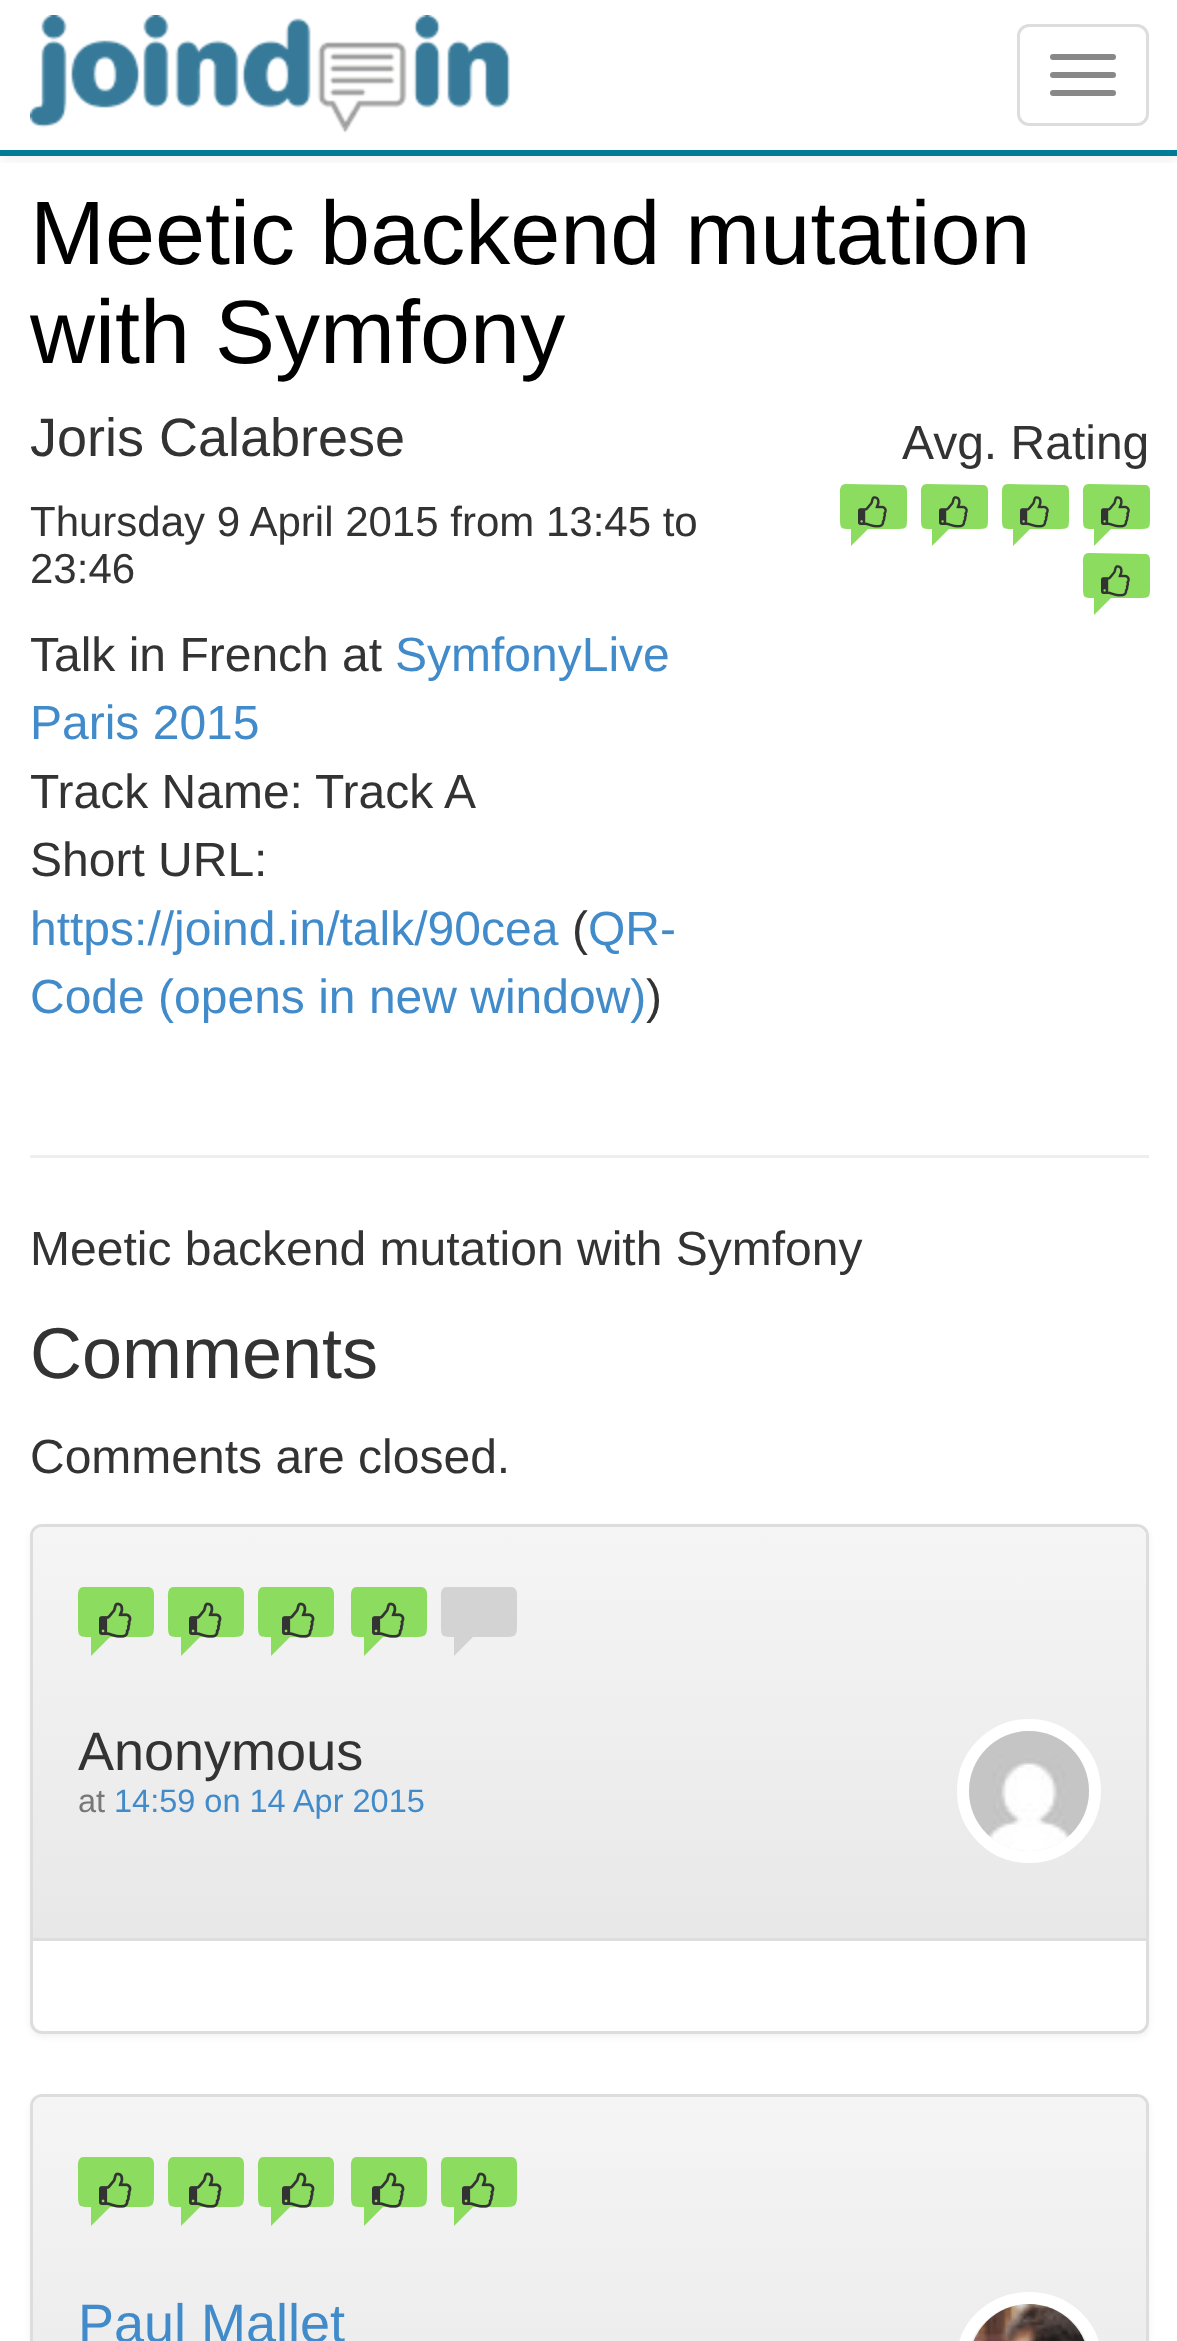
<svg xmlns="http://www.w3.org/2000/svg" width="1177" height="2341">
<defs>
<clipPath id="clip1"><rect x="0" y="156" width="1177" height="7"/></clipPath>
<linearGradient id="g1" gradientUnits="userSpaceOnUse" x1="590" y1="1527" x2="590" y2="1938"><stop offset="0" stop-color="#f5f5f5"/><stop offset="1" stop-color="#e8e8e8"/></linearGradient>
<linearGradient id="g2" gradientUnits="userSpaceOnUse" x1="590" y1="2097" x2="590" y2="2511"><stop offset="0" stop-color="#f5f5f5"/><stop offset="1" stop-color="#e8e8e8"/></linearGradient>
</defs>
<rect width="100%" height="100%" fill="#fff"/>
<g clip-path="url(#clip1)">
<rect y="3" width="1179" height="156" fill="#00000012" filter="blur(7.5px)"/>
</g>
<rect y="150" width="1177" height="6" fill="#007b97"/>
<image x="30" y="15" width="480" height="118" href="media/1.png"/>
<rect x="1018.5" y="25.5" width="129" height="99" rx="10.5" fill="none" stroke="#ddd" stroke-width="3"/>
<rect x="1050" y="54" width="66" height="6" rx="3" fill="#888"/>
<rect x="1050" y="72" width="66" height="6" rx="3" fill="#888"/>
<rect x="1050" y="90" width="66" height="6" rx="3" fill="#888"/>
<rect x="30" y="1155" width="1119" height="3" fill="#eee"/>
<text x="30" y="264" style="font-family:Liberation Sans;font-size:90px;fill:#000">Meetic backend mutation</text>
<text x="30" y="363" style="font-family:Liberation Sans;font-size:90px;fill:#000">with Symfony</text>
<text x="30" y="456" style="font-family:Liberation Sans;font-size:54px;fill:#333">Joris Calabrese</text>
<text x="30" y="536" style="font-family:Liberation Sans;font-size:42px;fill:#333">Thursday 9 April 2015 from 13:45 to</text>
<text x="30" y="583" style="font-family:Liberation Sans;font-size:42px;fill:#333">23:46</text>
<text x="30" y="671" style="font-family:Liberation Sans;font-size:48px;fill:#333">Talk in French at</text>
<text x="395" y="671" style="font-family:Liberation Sans;font-size:48px;fill:#428bca">SymfonyLive</text>
<text x="30" y="739" style="font-family:Liberation Sans;font-size:48px;fill:#428bca">Paris 2015</text>
<text x="30" y="808" style="font-family:Liberation Sans;font-size:48px;fill:#333">Track Name:</text>
<text x="315" y="808" style="font-family:Liberation Sans;font-size:48px;fill:#333">Track A</text>
<text x="30" y="876" style="font-family:Liberation Sans;font-size:48px;fill:#333">Short URL:</text>
<text x="30" y="945" style="font-family:Liberation Sans;font-size:48px;fill:#428bca">https://joind.in/talk/90cea</text>
<text x="572" y="945" style="font-family:Liberation Sans;font-size:48px;fill:#333">(</text>
<text x="588" y="945" style="font-family:Liberation Sans;font-size:48px;fill:#428bca">QR-</text>
<text x="30" y="1013" style="font-family:Liberation Sans;font-size:48px;fill:#428bca">Code (opens in new window)</text>
<text x="646" y="1013" style="font-family:Liberation Sans;font-size:48px;fill:#333">)</text>
<text x="902" y="459" style="font-family:Liberation Sans;font-size:48px;fill:#333">Avg. Rating</text>
<path d="M846 484l57 1c5 1 4 7 4 11v22c0 10 0 11-11 11h-28l-17 17v-17c-10 0-11 0-11-11v-22c0-5-1-12 6-12z" fill="#8cdc60"/>
<image x="858" y="496" width="29" height="32" href="media/2.png"/>
<path d="M927 484l57 1c5 1 4 7 4 11v22c0 10 0 11-11 11h-28l-17 17v-17c-10 0-11 0-11-11v-22c0-5-1-12 6-12z" fill="#8cdc60"/>
<image x="939" y="496" width="29" height="32" href="media/2.png"/>
<path d="M1008 484l57 1c5 1 4 7 4 11v22c0 10 0 11-11 11h-28l-17 17v-17c-10 0-11 0-11-11v-22c0-5-1-12 6-12z" fill="#8cdc60"/>
<image x="1020" y="496" width="29" height="32" href="media/2.png"/>
<path d="M1089 484l57 1c5 1 4 7 4 11v22c0 10 0 11-11 11h-28l-17 17v-17c-10 0-11 0-11-11v-22c0-5-1-12 6-12z" fill="#8cdc60"/>
<image x="1101" y="496" width="29" height="32" href="media/2.png"/>
<path d="M1089 553l57 1c5 1 4 7 4 11v22c0 10 0 11-11 11h-28l-17 17v-17c-10 0-11 0-11-11v-22c0-5-1-12 6-12z" fill="#8cdc60"/>
<image x="1101" y="565" width="29" height="32" href="media/2.png"/>
<text x="30" y="1265" style="font-family:Liberation Sans;font-size:48px;fill:#333">Meetic backend mutation with Symfony</text>
<text x="30" y="1378" style="font-family:Liberation Sans;font-size:72px;fill:#333">Comments</text>
<text x="30" y="1473" style="font-family:Liberation Sans;font-size:48px;fill:#333">Comments are closed.</text>
<rect x="30" y="1527" width="1119" height="510" rx="12" fill="#0000000d" filter="blur(3px)"/>
<rect x="31.5" y="1525.5" width="1116" height="507" rx="10.5" fill="#fff" stroke="#ddd" stroke-width="3"/>
<path d="M42 1527h1095c5 0 9 4 9 9v402h-1113v-402c0-5 4-9 9-9z" fill="url(#g1)"/>
<rect x="33" y="1938" width="1113" height="3" fill="#ddd"/>
<path d="M84 1587h65c6 1 5 8 5 12v26c0 11-1 12-13 12h-31l-19 19v-19c-12 0-13 0-13-12v-26c0-4-1-12 6-12z" fill="#8cdc60"/>
<image x="99" y="1602" width="33" height="36" href="media/3.png"/>
<path d="M174 1587h65c6 1 5 8 5 12v26c0 11-1 12-13 12h-31l-19 19v-19c-12 0-13 0-13-12v-26c0-4-1-12 6-12z" fill="#8cdc60"/>
<image x="189" y="1602" width="33" height="36" href="media/3.png"/>
<path d="M264 1587h65c6 1 5 8 5 12v26c0 11-1 12-13 12h-31l-19 19v-19c-12 0-13 0-13-12v-26c0-4-1-12 6-12z" fill="#8cdc60"/>
<image x="282" y="1602" width="33" height="36" href="media/4.png"/>
<path d="M357 1587h65c6 1 5 8 5 12v26c0 11-1 12-13 12h-31l-19 19v-19c-12 0-13 0-13-12v-26c0-4-1-12 6-12z" fill="#8cdc60"/>
<image x="372" y="1602" width="33" height="36" href="media/3.png"/>
<path d="M447 1587h65c6 1 5 8 5 12v26c0 11-1 12-13 12h-31l-19 19v-19c-12 0-13 0-13-12v-26c0-4-1-12 6-12z" fill="#d3d3d3"/>
<text x="78" y="1770" style="font-family:Liberation Sans;font-size:54px;fill:#333">Anonymous</text>
<text x="78" y="1812" style="font-family:Liberation Sans;font-size:32.5px;fill:#777">at</text>
<text x="114" y="1812" style="font-family:Liberation Sans;font-size:32.5px;fill:#428bca">14:59 on 14 Apr 2015</text>
<circle cx="1029" cy="1791" r="66" fill="none" stroke="#fff" stroke-width="12"/>
<image x="969" y="1731" width="120" height="120" href="media/5.png"/>
<rect x="30" y="2097" width="1119" height="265" rx="12" fill="#0000000d" filter="blur(3px)"/>
<rect x="31.5" y="2095.5" width="1116" height="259" rx="10.5" fill="none" stroke="#ddd" stroke-width="3"/>
<path d="M42 2097h1095c5 0 9 4 9 9v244h-1113v-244c0-5 4-9 9-9z" fill="url(#g2)"/>
<path d="M84 2157h65c6 1 5 8 5 12v25c0 12-1 13-13 13h-31l-19 19v-19c-12 0-13 0-13-13v-25c0-4-1-12 6-12z" fill="#8cdc60"/>
<image x="99" y="2172" width="33" height="36" href="media/3.png"/>
<path d="M174 2157h65c6 1 5 8 5 12v25c0 12-1 13-13 13h-31l-19 19v-19c-12 0-13 0-13-13v-25c0-4-1-12 6-12z" fill="#8cdc60"/>
<image x="189" y="2172" width="33" height="36" href="media/3.png"/>
<path d="M264 2157h65c6 1 5 8 5 12v25c0 12-1 13-13 13h-31l-19 19v-19c-12 0-13 0-13-13v-25c0-4-1-12 6-12z" fill="#8cdc60"/>
<image x="282" y="2172" width="33" height="36" href="media/4.png"/>
<path d="M357 2157h65c6 1 5 8 5 12v25c0 12-1 13-13 13h-31l-19 19v-19c-12 0-13 0-13-13v-25c0-4-1-12 6-12z" fill="#8cdc60"/>
<image x="372" y="2172" width="33" height="36" href="media/3.png"/>
<path d="M447 2157h65c6 1 5 8 5 12v25c0 12-1 13-13 13h-31l-19 19v-19c-12 0-13 0-13-13v-25c0-4-1-12 6-12z" fill="#8cdc60"/>
<image x="462" y="2172" width="33" height="36" href="media/3.png"/>
<text x="78" y="2342" style="font-family:Liberation Sans;font-size:54px;fill:#428bca">Paul Mallet</text>
<rect x="963" y="2298" width="132" height="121" rx="66" fill="none" stroke="#fff" stroke-width="12"/>
<image x="973" y="2304" width="112" height="37" href="media/6.png"/>
</svg>
